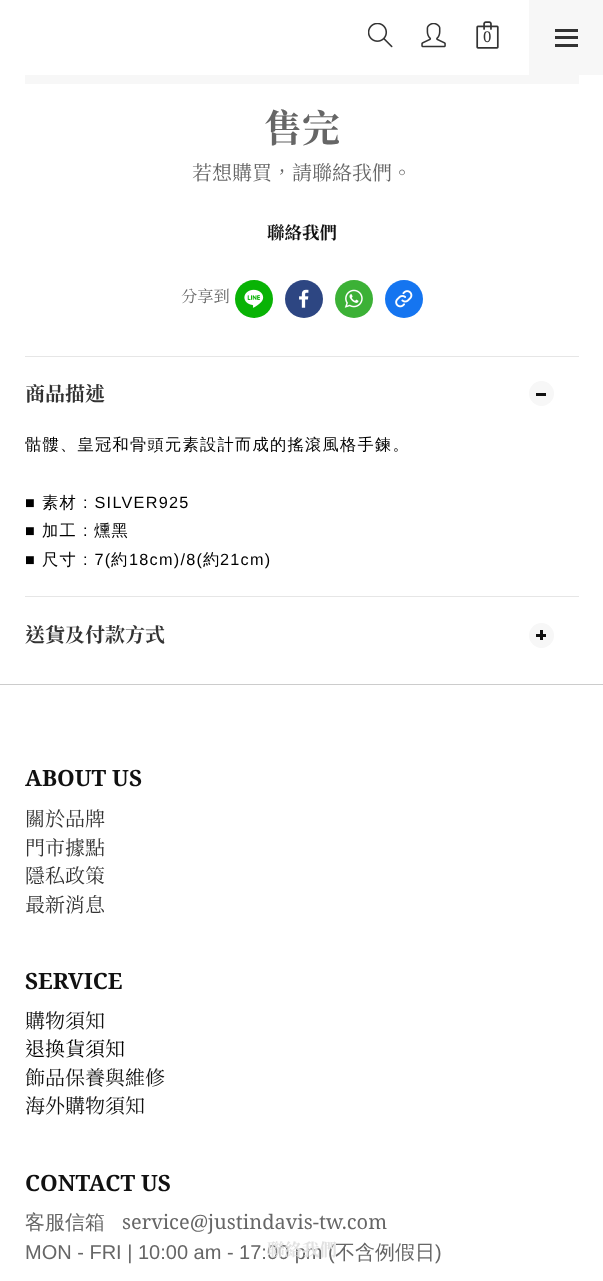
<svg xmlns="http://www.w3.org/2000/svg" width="603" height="1281">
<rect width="100%" height="100%" fill="#fff"/>
<image x="368" y="23" width="25" height="25" href="media/1.png"/>
<image x="421" y="23" width="25" height="25" href="media/2.png"/>
<image x="476" y="21" width="23" height="28" href="media/3.png"/>
<text x="483" y="42" style="font-family:Noto Serif;font-size:15px;fill:#333">0</text>
<rect x="529" width="74" height="75" fill="#f7f7f7"/>
<rect x="555" y="36" width="23" height="3" fill="#333"/>
<rect x="555" y="29" width="23" height="3" fill="#333"/>
<rect x="555" y="44" width="23" height="3" fill="#333"/>
<rect x="25" y="75" width="554" height="9" fill="#f7f7f7"/>
<text x="264" y="142" style="font-family:Noto Serif TC;font-size:38px;font-weight:bold;fill:#666">售完</text>
<text x="192" y="180" style="font-family:Noto Serif TC;font-size:20px;fill:#666">若想購買，請聯絡我們。</text>
<text x="267" y="239" style="font-family:Noto Serif TC;font-size:17.5px;font-weight:bold;fill:#111">聯絡我們</text>
<text x="181" y="302" style="font-family:Noto Serif TC;font-size:16.25px;fill:#666">分享到</text>
<circle cx="254" cy="299" r="19" fill="#09b305"/>
<image x="244" y="289" width="20" height="19" href="media/4.png"/>
<circle cx="304" cy="299" r="19" fill="#2d4682"/>
<image x="299" y="289" width="10" height="19" href="media/5.png"/>
<circle cx="354" cy="299" r="19" fill="#3cb136"/>
<image x="344" y="289" width="19" height="19" href="media/6.png"/>
<circle cx="404" cy="299" r="19" fill="#1575f0"/>
<image x="395" y="290" width="18" height="18" href="media/7.png"/>
<rect x="25" y="356" width="554" height="1" fill="#e6e6e6"/>
<text x="25" y="401" style="font-family:Noto Serif TC;font-size:20px;font-weight:bold;fill:#333">商品描述</text>
<circle cx="541.5" cy="393.5" r="12.5" fill="#f7f7f7"/>
<rect x="536" y="393" width="10" height="3" fill="#111"/>
<text x="25" y="450" style="font-family:WenQuanYi Zen Hei;font-size:16.25px;font-weight:500;letter-spacing:1.25px;fill:#000">骷髏、皇冠和骨頭元素設計而成的搖滾風格手鍊。</text>
<text x="25" y="508" style="font-family:Liberation Sans;font-size:16.25px;letter-spacing:1.25px;fill:#000">■</text>
<text x="42" y="508" style="font-family:WenQuanYi Zen Hei;font-size:16.25px;font-weight:500;letter-spacing:1.25px;fill:#000">素材</text>
<text x="83" y="508" style="font-family:Liberation Sans;font-size:16.25px;letter-spacing:1.25px;fill:#000">: SILVER925</text>
<text x="25" y="536" style="font-family:Liberation Sans;font-size:16.25px;letter-spacing:1.25px;fill:#000">■</text>
<text x="42" y="536" style="font-family:WenQuanYi Zen Hei;font-size:16.25px;font-weight:500;letter-spacing:1.25px;fill:#000">加工</text>
<text x="83" y="536" style="font-family:Liberation Sans;font-size:16.25px;letter-spacing:1.25px;fill:#000">:</text>
<text x="94" y="536" style="font-family:WenQuanYi Zen Hei;font-size:16.25px;font-weight:500;letter-spacing:1.25px;fill:#000">燻黑</text>
<text x="25" y="565" style="font-family:Liberation Sans;font-size:16.25px;letter-spacing:1.25px;fill:#000">■</text>
<text x="42" y="565" style="font-family:WenQuanYi Zen Hei;font-size:16.25px;font-weight:500;letter-spacing:1.25px;fill:#000">尺寸</text>
<text x="83" y="565" style="font-family:Liberation Sans;font-size:16.25px;letter-spacing:1.25px;fill:#000">: 7(</text>
<text x="111" y="565" style="font-family:WenQuanYi Zen Hei;font-size:16.25px;font-weight:500;letter-spacing:1.25px;fill:#000">約</text>
<text x="129" y="565" style="font-family:Liberation Sans;font-size:16.25px;letter-spacing:1.25px;fill:#000">18cm)/8(</text>
<text x="203" y="565" style="font-family:WenQuanYi Zen Hei;font-size:16.25px;font-weight:500;letter-spacing:1.25px;fill:#000">約</text>
<text x="220" y="565" style="font-family:Liberation Sans;font-size:16.25px;letter-spacing:1.25px;fill:#000">21cm)</text>
<rect x="25" y="596" width="554" height="1" fill="#e6e6e6"/>
<text x="25" y="642" style="font-family:Noto Serif TC;font-size:20px;font-weight:bold;fill:#333">送貨及付款方式</text>
<circle cx="541.5" cy="635.5" r="12.5" fill="#f7f7f7"/>
<rect x="536" y="634" width="10" height="3" fill="#111"/>
<rect x="540" y="630" width="3" height="10" fill="#111"/>
<text x="25" y="1259" style="font-family:Liberation Sans;font-size:20px;fill:#666">MON - FRI | 10:00 am - 17:00 pm (</text>
<text x="335" y="1259" style="font-family:WenQuanYi Zen Hei;font-size:20px;font-weight:500;fill:#666">不含例假日</text>
<text x="267" y="1256" style="font-family:Noto Serif TC;font-size:17.5px;font-weight:bold;fill:#e1e1e1">聯絡我們</text>
<rect y="684" width="603" height="1" fill="#ccc"/>
<text x="25" y="786" style="font-family:Noto Serif;font-size:22.5px;font-weight:bold;fill:#111">ABOUT US</text>
<text x="25" y="826" style="font-family:Noto Serif TC;font-size:20px;fill:#333">關於品牌</text>
<text x="25" y="855" style="font-family:Noto Serif TC;font-size:20px;fill:#333">門市據點</text>
<text x="25" y="883" style="font-family:Noto Serif TC;font-size:20px;fill:#333">隱私政策</text>
<text x="25" y="912" style="font-family:Noto Serif TC;font-size:20px;fill:#333">最新消息</text>
<text x="25" y="989" style="font-family:Noto Serif;font-size:22.5px;font-weight:bold;fill:#111">SERVICE</text>
<text x="25" y="1028" style="font-family:Noto Serif TC;font-size:20px;fill:#111">購物須知</text>
<text x="25" y="1056" style="font-family:Noto Serif TC;font-size:20px;fill:#000">退換貨須知</text>
<text x="25" y="1085" style="font-family:Noto Serif TC;font-size:20px;fill:#111">飾品保養與維修</text>
<text x="25" y="1113" style="font-family:Noto Serif TC;font-size:20px;fill:#111">海外購物須知</text>
<text x="25" y="1191" style="font-family:Noto Serif;font-size:22.5px;font-weight:bold;fill:#111">CONTACT US</text>
<text x="25" y="1229" style="font-family:WenQuanYi Zen Hei;font-size:20px;font-weight:500;fill:#666">客服信箱</text>
<text x="122" y="1229" style="font-family:Noto Serif;font-size:20px;fill:#666">service@justindavis-tw.com</text>
<text x="435" y="1259" style="font-family:Liberation Sans;font-size:20px;fill:#666">)</text>
</svg>
